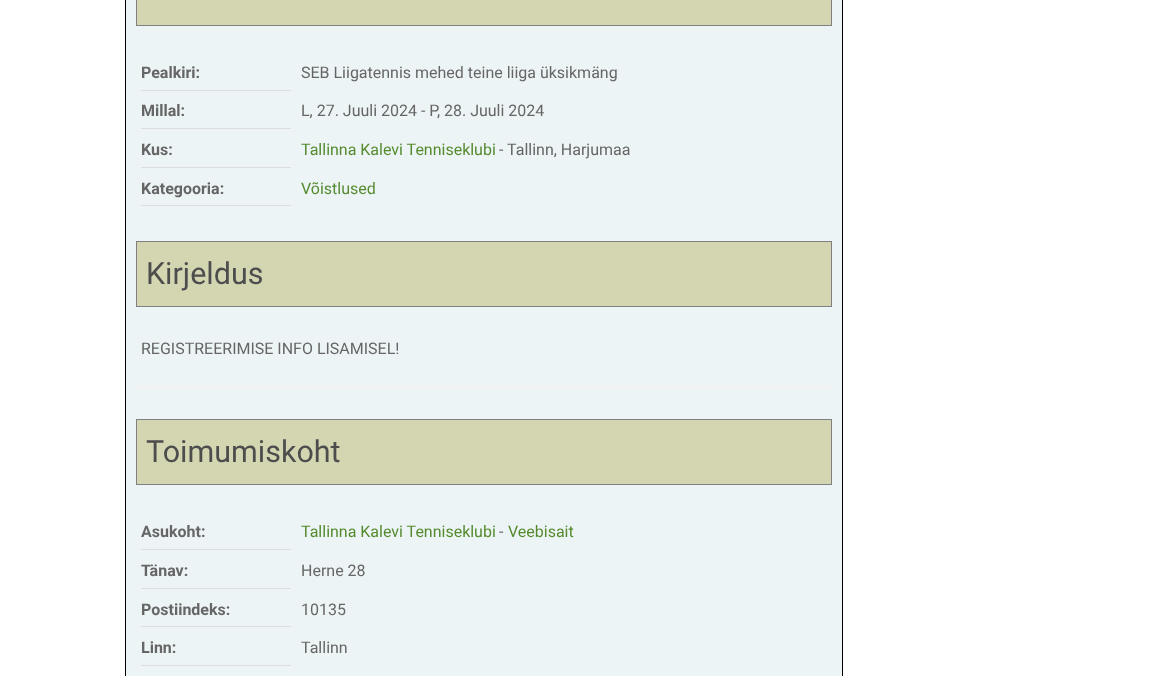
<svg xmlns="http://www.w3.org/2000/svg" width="1159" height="676">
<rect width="100%" height="100%" fill="#fff"/>
<rect x="125.5" y="-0.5" width="717" height="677" fill="#edf4f5" stroke="#000"/>
<rect x="136.5" y="-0.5" width="695" height="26" fill="#d4d6b2" stroke="#808080"/>
<rect x="141" y="90" width="150" height="1" fill="#ddd"/>
<text x="141" y="78" style="font-family:Roboto;font-size:16px;font-weight:bold;fill:#666">Pealkiri:</text>
<text x="301" y="78" style="font-family:Roboto;font-size:16px;fill:#666">SEB Liigatennis mehed teine liiga üksikmäng</text>
<rect x="141" y="128" width="150" height="1" fill="#ddd"/>
<text x="141" y="116" style="font-family:Roboto;font-size:16px;font-weight:bold;fill:#666">Millal:</text>
<text x="301" y="116" style="font-family:Roboto;font-size:16px;fill:#666">L, 27. Juuli 2024 - P, 28. Juuli 2024</text>
<rect x="141" y="167" width="150" height="1" fill="#ddd"/>
<text x="141" y="155" style="font-family:Roboto;font-size:16px;font-weight:bold;fill:#666">Kus:</text>
<text x="301" y="155" style="font-family:Roboto;font-size:16px;fill:#558b2f">Tallinna Kalevi Tenniseklubi</text>
<text x="499" y="155" style="font-family:Roboto;font-size:16px;fill:#666">- Tallinn, Harjumaa</text>
<rect x="141" y="205" width="150" height="1" fill="#ddd"/>
<text x="141" y="194" style="font-family:Roboto;font-size:16px;font-weight:bold;fill:#666">Kategooria:</text>
<text x="301" y="194" style="font-family:Roboto;font-size:16px;fill:#558b2f">Võistlused</text>
<rect x="136.5" y="241.5" width="695" height="65" fill="#d4d6b2" stroke="#808080"/>
<text x="146" y="284" style="font-family:Roboto;font-size:30.5px;fill:#4d4d4d">Kirjeldus</text>
<text x="141" y="354" style="font-family:Roboto;font-size:16px;fill:#666">REGISTREERIMISE INFO LISAMISEL!</text>
<rect x="136" y="385" width="696" height="4" fill="#f0f2f4"/>
<rect x="136.5" y="419.5" width="695" height="65" fill="#d4d6b2" stroke="#808080"/>
<text x="146" y="462" style="font-family:Roboto;font-size:30.5px;fill:#4d4d4d">Toimumiskoht</text>
<rect x="141" y="549" width="150" height="1" fill="#ddd"/>
<text x="141" y="537" style="font-family:Roboto;font-size:16px;font-weight:bold;fill:#666">Asukoht:</text>
<text x="301" y="537" style="font-family:Roboto;font-size:16px;fill:#558b2f">Tallinna Kalevi Tenniseklubi</text>
<text x="499" y="537" style="font-family:Roboto;font-size:16px;fill:#666">-</text>
<text x="508" y="537" style="font-family:Roboto;font-size:16px;fill:#558b2f">Veebisait</text>
<rect x="141" y="588" width="150" height="1" fill="#ddd"/>
<text x="141" y="576" style="font-family:Roboto;font-size:16px;font-weight:bold;fill:#666">Tänav:</text>
<text x="301" y="576" style="font-family:Roboto;font-size:16px;fill:#666">Herne 28</text>
<rect x="141" y="626" width="150" height="1" fill="#ddd"/>
<text x="141" y="615" style="font-family:Roboto;font-size:16px;font-weight:bold;fill:#666">Postiindeks:</text>
<text x="301" y="615" style="font-family:Roboto;font-size:16px;fill:#666">10135</text>
<rect x="141" y="665" width="150" height="1" fill="#ddd"/>
<text x="141" y="653" style="font-family:Roboto;font-size:16px;font-weight:bold;fill:#666">Linn:</text>
<text x="301" y="653" style="font-family:Roboto;font-size:16px;fill:#666">Tallinn</text>
</svg>
